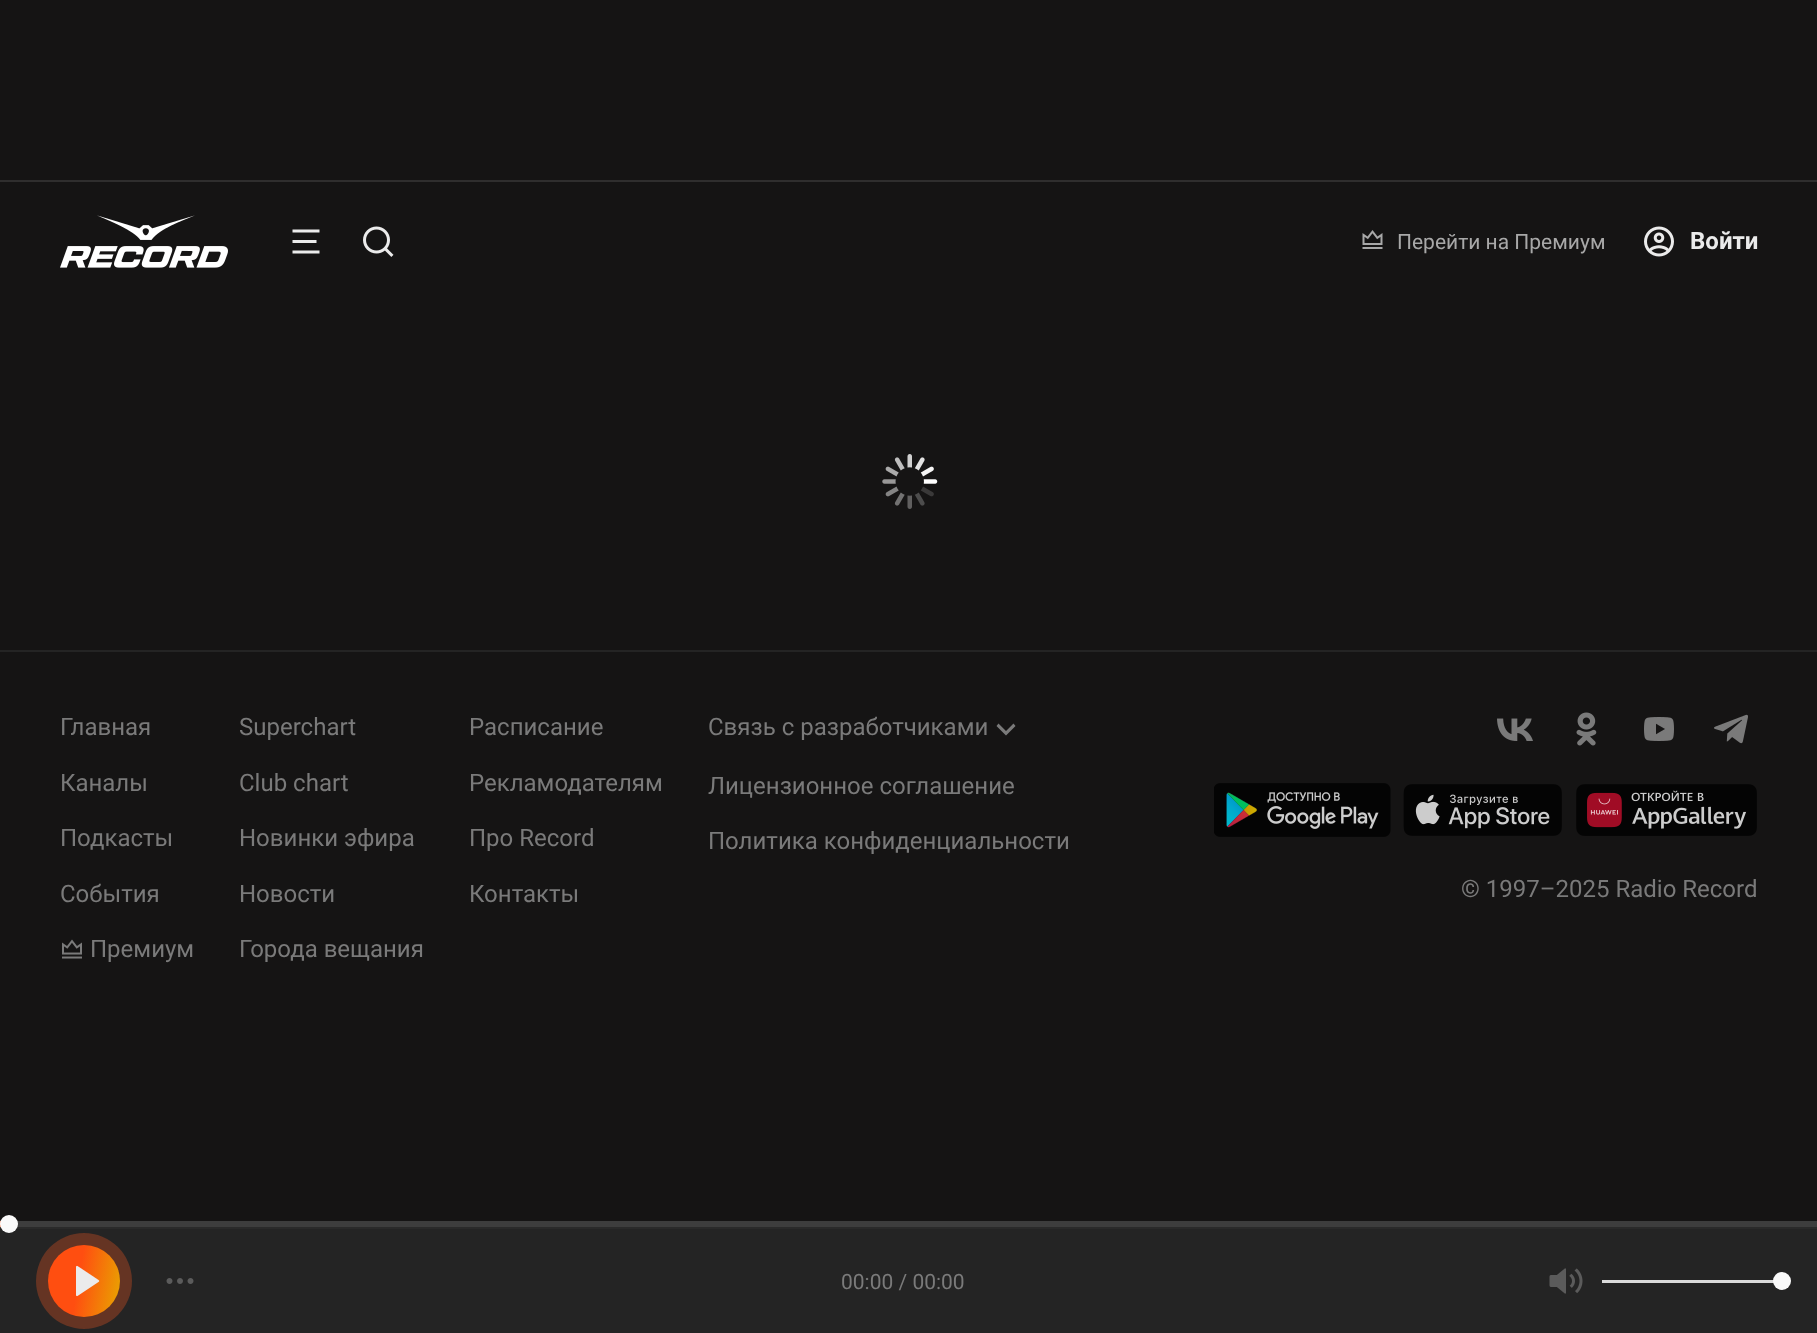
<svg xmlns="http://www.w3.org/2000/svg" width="1817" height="1333">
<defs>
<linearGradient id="g1" gradientUnits="userSpaceOnUse" x1="43" y1="1274" x2="125" y2="1288"><stop offset="0.43" stop-color="#ff4e10"/><stop offset="1" stop-color="#e8a700"/></linearGradient>
</defs>
<rect width="100%" height="100%" fill="#151414"/>
<rect y="180" width="1817" height="2" fill="#2f2e2e"/>
<image x="60" y="215" width="168" height="53" href="media/1.png"/>
<image x="292" y="229" width="28" height="25" href="media/2.png"/>
<image x="363" y="226" width="31" height="31" href="media/3.png"/>
<image x="1362" y="230" width="21" height="19" href="media/4.png"/>
<text x="1397" y="249" style="font-family:Roboto;font-size:21px;fill:#a8a8a8">Перейти на Премиум</text>
<image x="1644" y="226" width="30" height="31" href="media/5.png"/>
<text x="1690" y="249" style="font-family:Roboto;font-size:24px;font-weight:bold;fill:#ebebeb">Войти</text>
<image x="882" y="454" width="56" height="55" href="media/6.png"/>
<rect y="650" width="1817" height="2" fill="#242424"/>
<text x="60" y="735" style="font-family:Roboto;font-size:24px;fill:#7a7a7a">Главная</text>
<text x="60" y="791" style="font-family:Roboto;font-size:24px;fill:#7a7a7a">Каналы</text>
<text x="60" y="846" style="font-family:Roboto;font-size:24px;fill:#7a7a7a">Подкасты</text>
<text x="60" y="902" style="font-family:Roboto;font-size:24px;fill:#7a7a7a">События</text>
<image x="62" y="939" width="20" height="20" href="media/7.png"/>
<text x="90" y="957" style="font-family:Roboto;font-size:24px;fill:#7a7a7a">Премиум</text>
<text x="239" y="735" style="font-family:Roboto;font-size:24px;fill:#7a7a7a">Superchart</text>
<text x="239" y="791" style="font-family:Roboto;font-size:24px;fill:#7a7a7a">Club chart</text>
<text x="239" y="846" style="font-family:Roboto;font-size:24px;fill:#7a7a7a">Новинки эфира</text>
<text x="239" y="902" style="font-family:Roboto;font-size:24px;fill:#7a7a7a">Новости</text>
<text x="239" y="957" style="font-family:Roboto;font-size:24px;fill:#7a7a7a">Города вещания</text>
<text x="469" y="735" style="font-family:Roboto;font-size:24px;fill:#7a7a7a">Расписание</text>
<text x="469" y="791" style="font-family:Roboto;font-size:24px;fill:#7a7a7a">Рекламодателям</text>
<text x="469" y="846" style="font-family:Roboto;font-size:24px;fill:#7a7a7a">Про Record</text>
<text x="469" y="902" style="font-family:Roboto;font-size:24px;fill:#7a7a7a">Контакты</text>
<text x="708" y="735" style="font-family:Roboto;font-size:24px;fill:#7a7a7a">Связь с разработчиками</text>
<path d="M1006 731l7.5-7.5l2 2.5l-9.5 9.5l-9.5-9.5l2-2.5z" fill="#7a7a7a"/>
<text x="708" y="794" style="font-family:Roboto;font-size:24px;fill:#7a7a7a">Лицензионное соглашение</text>
<text x="708" y="849" style="font-family:Roboto;font-size:24px;fill:#7a7a7a">Политика конфиденциальности</text>
<image x="1497" y="718" width="36" height="23" href="media/8.png"/>
<image x="1576" y="712" width="21" height="34" href="media/9.png"/>
<image x="1644" y="717" width="30" height="24" href="media/10.png"/>
<image x="1714" y="714" width="34" height="30" href="media/11.png"/>
<image x="1214" y="783" width="177" height="54" href="media/12.png"/>
<image x="1403" y="784" width="159" height="52" href="media/13.png"/>
<image x="1576" y="784" width="181" height="52" href="media/14.png"/>
<text x="1461" y="897" style="font-family:Roboto;font-size:24px;fill:#7a7a7a">© 1997–2025 Radio Record</text>
<rect y="1229" width="1817" height="104" fill="#242424"/>
<rect y="1221" width="9" height="6" fill="#fc581f"/>
<rect x="9" y="1221" width="1808" height="6" fill="#3d3d3d"/>
<rect y="1227" width="1817" height="2" fill="#2a2a2a"/>
<circle cx="9" cy="1224" r="9" fill="#fafafa"/>
<circle cx="84" cy="1281" r="48" fill="#653423"/>
<circle cx="84" cy="1281" r="36" fill="url(#g1)"/>
<image x="76" y="1265" width="24" height="32" href="media/15.png"/>
<image x="166" y="1278" width="28" height="6" href="media/16.png"/>
<text x="841" y="1289" style="font-family:Roboto;font-size:21px;fill:#7a7a7a">00:00 / 00:00</text>
<image x="1549" y="1268" width="34" height="26" href="media/17.png"/>
<rect x="1602" y="1280" width="180" height="3" fill="#dbdbdb"/>
<circle cx="1782" cy="1281" r="9" fill="#fafafa"/>
</svg>
